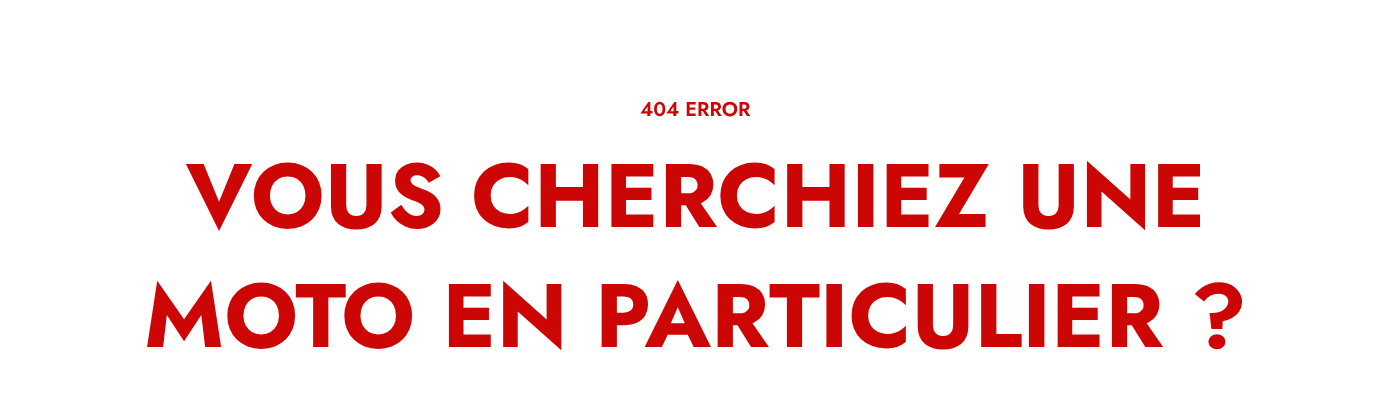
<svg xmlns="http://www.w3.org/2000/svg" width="1391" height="395">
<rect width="100%" height="100%" fill="#fff"/>
<text x="640" y="116" style="font-family:Jost;font-size:20px;font-weight:600;fill:#cc0605">404 ERROR</text>
<text x="186" y="227" style="font-family:Jost;font-size:90px;font-weight:bold;fill:#cc0605">VOUS CHERCHIEZ UNE</text>
<text x="144" y="347" style="font-family:Jost;font-size:90px;font-weight:bold;fill:#cc0605">MOTO EN PARTICULIER ?</text>
</svg>
